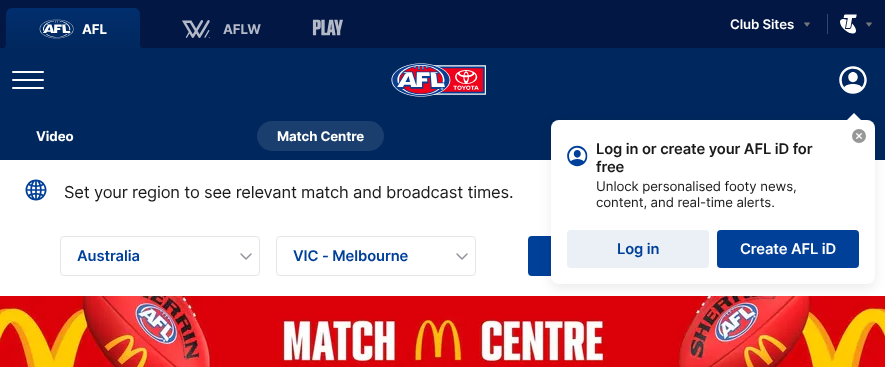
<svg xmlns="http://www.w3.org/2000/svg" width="885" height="367">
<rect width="100%" height="100%" fill="#fff"/>
<rect width="885" height="48" fill="#031745"/>
<image x="4" y="8" width="138" height="40" href="media/1.png"/>
<image x="39" y="19" width="35" height="20" href="media/2.png"/>
<text x="82" y="34" style="font-family:Inter;font-size:13.25px;font-weight:bold;letter-spacing:-0.1px;fill:#fff">AFL</text>
<image x="182" y="20" width="28" height="18" href="media/3.png"/>
<text x="223" y="34" style="font-family:Inter;font-size:13.25px;font-weight:bold;letter-spacing:-0.1px;fill:#b3b9c7">AFLW</text>
<image x="312" y="19" width="31" height="17" href="media/4.png"/>
<text x="730" y="29" style="font-family:Inter;font-size:13.25px;font-weight:600;letter-spacing:-0.1px;fill:#fff">Club Sites</text>
<image x="804" y="22" width="6" height="5" href="media/5.png"/>
<rect x="827" y="14" width="1" height="20" fill="#35456a"/>
<image x="840" y="14" width="17" height="20" href="media/6.png"/>
<image x="866" y="22" width="6" height="5" href="media/5.png"/>
<rect y="48" width="885" height="112" fill="#01285e"/>
<text x="36" y="141" style="font-family:Inter;font-size:13.25px;font-weight:bold;letter-spacing:-0.1px;fill:#fff">Video</text>
<rect x="257" y="121" width="127" height="30" rx="15" fill="#1a3e6e"/>
<text x="277" y="141" style="font-family:Inter;font-size:13.25px;font-weight:bold;letter-spacing:-0.1px;fill:#fff">Match Centre</text>
<rect x="12" y="71" width="32" height="2" rx="1" fill="#fff"/>
<rect x="12" y="79" width="32" height="2" rx="1" fill="#fff"/>
<rect x="12" y="87" width="32" height="2" rx="1" fill="#fff"/>
<image x="391" y="63" width="95" height="34" href="media/7.png"/>
<image x="839" y="66" width="28" height="28" href="media/8.png"/>
<rect x="528" y="236" width="104" height="40" rx="4" fill="#004099"/>
<image x="0" y="296" width="885" height="71" href="media/13.png"/>
<rect x="551" y="124" width="324" height="164" rx="8" fill="#00000014" filter="blur(6px)"/>
<path d="M854 113l-7 7h14z" fill="#fff"/>
<rect x="551" y="120" width="324" height="164" rx="8" fill="#fff"/>
<image x="852" y="129" width="14" height="14" href="media/9.png"/>
<image x="567" y="145" width="21" height="22" href="media/10.png"/>
<text x="596" y="154" style="font-family:Inter;font-size:14.75px;font-weight:600;letter-spacing:-0.1px;fill:#1a1a1a">Log in or create your AFL iD for</text>
<text x="596" y="172" style="font-family:Inter;font-size:14.75px;font-weight:600;letter-spacing:-0.1px;fill:#1a1a1a">free</text>
<text x="596" y="191" style="font-family:Inter;font-size:13.25px;letter-spacing:-0.1px;fill:#1a1a1a">Unlock personalised footy news,</text>
<text x="596" y="207" style="font-family:Inter;font-size:13.25px;letter-spacing:-0.1px;fill:#1a1a1a">content, and real-time alerts.</text>
<rect x="567" y="230" width="142" height="38" rx="4" fill="#00409914"/>
<text x="617" y="254" style="font-family:Inter;font-size:14.75px;font-weight:600;letter-spacing:-0.1px;fill:#004099">Log in</text>
<rect x="717" y="230" width="142" height="38" rx="4" fill="#0000001a" filter="blur(0.5px)"/>
<rect x="717" y="230" width="142" height="38" rx="4" fill="#004099"/>
<text x="740" y="254" style="font-family:Inter;font-size:14.75px;font-weight:600;letter-spacing:-0.1px;fill:#fff">Create AFL iD</text>
<image x="25" y="179" width="22" height="22" href="media/11.png"/>
<text x="64" y="198" style="font-family:Inter;font-size:16.5px;letter-spacing:-0.2px;fill:#1a1a1a">Set your region to see relevant match and broadcast times.</text>
<rect x="60.5" y="236.5" width="199" height="39" rx="3.5" fill="none" stroke="#e6e6e6"/>
<text x="77" y="261" style="font-family:Inter;font-size:14.75px;font-weight:600;letter-spacing:-0.1px;fill:#004099">Australia</text>
<image x="240" y="253" width="12" height="7" href="media/12.png"/>
<rect x="276.5" y="236.5" width="199" height="39" rx="3.5" fill="none" stroke="#e6e6e6"/>
<text x="293" y="261" style="font-family:Inter;font-size:14.75px;font-weight:600;letter-spacing:-0.1px;fill:#004099">VIC - Melbourne</text>
<image x="456" y="253" width="12" height="7" href="media/12.png"/>
</svg>
